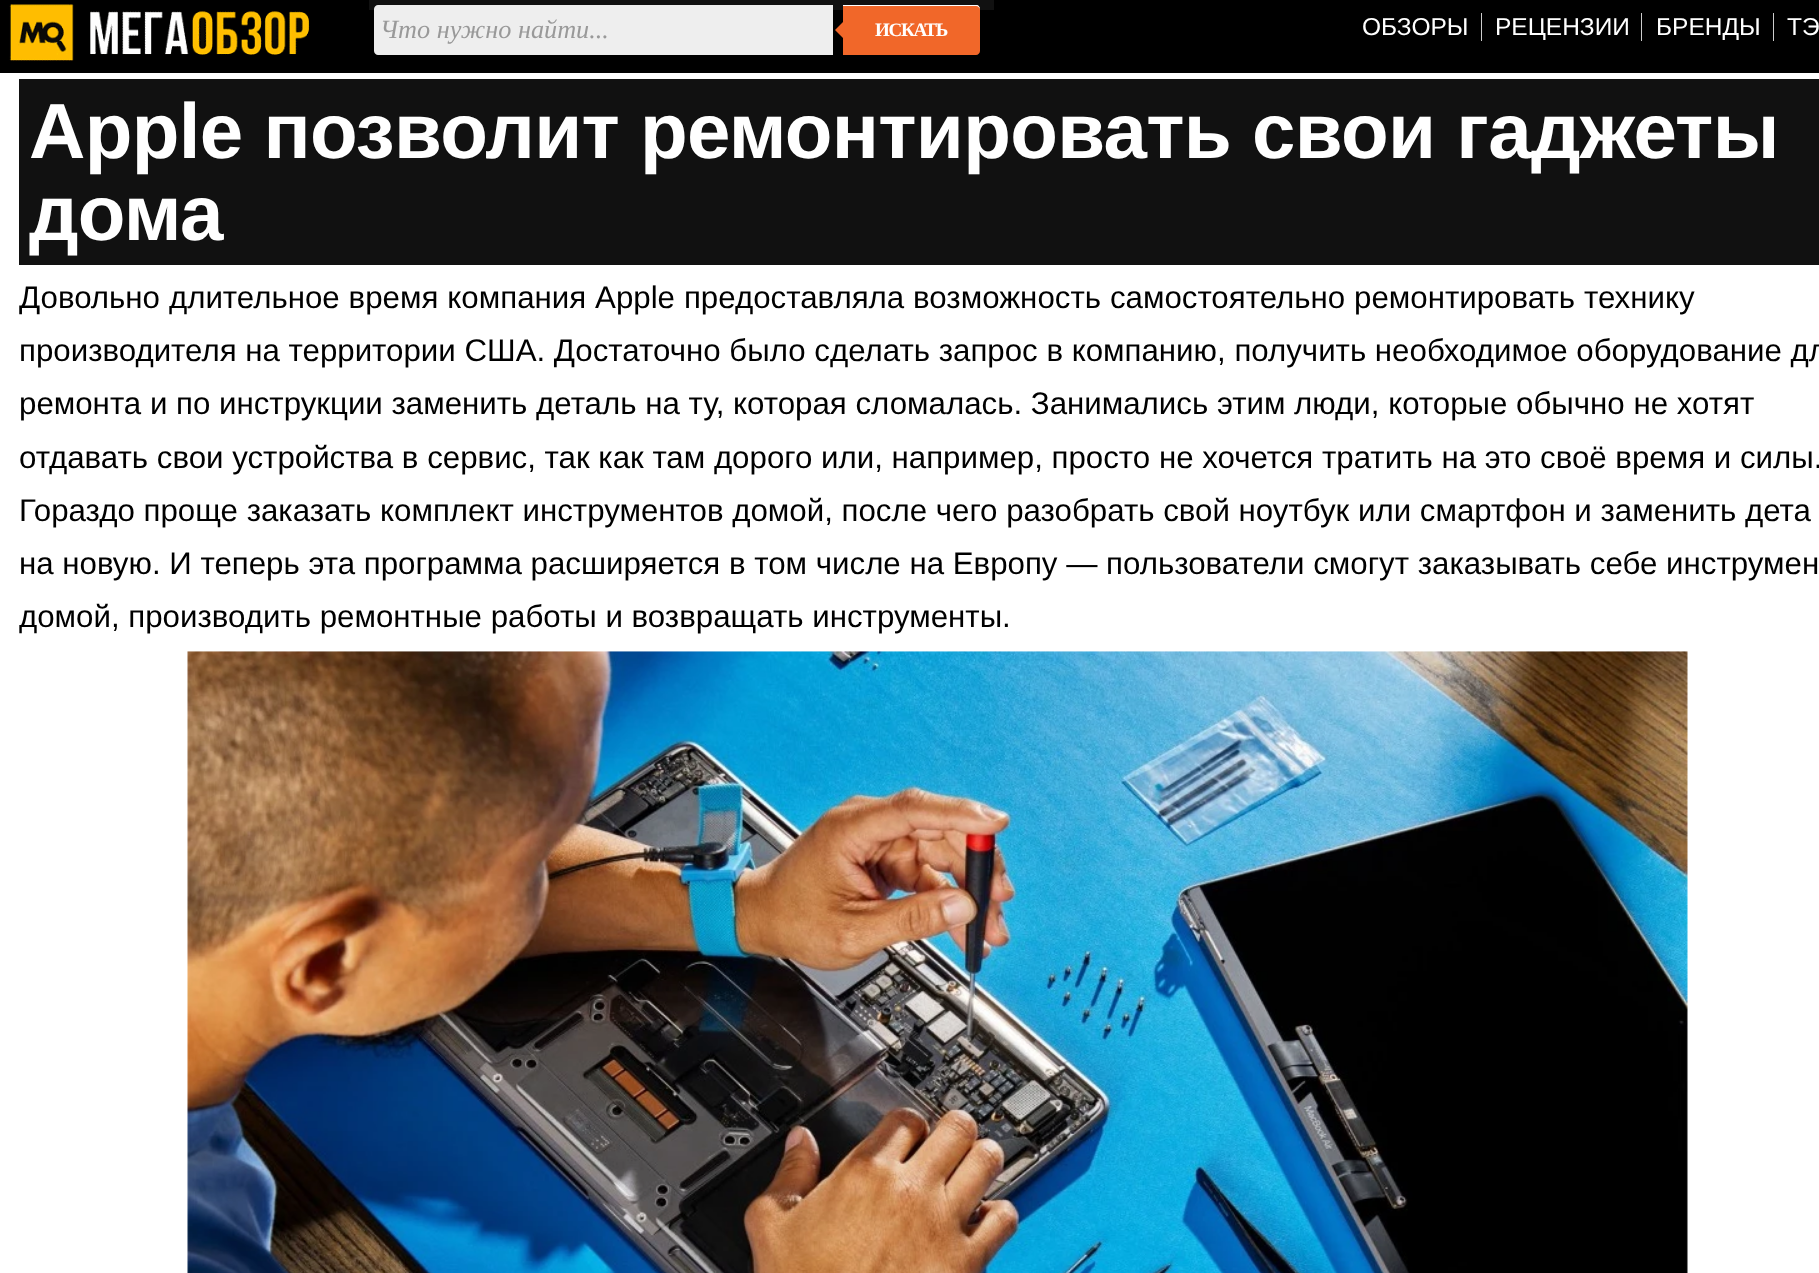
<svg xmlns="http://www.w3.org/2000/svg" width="1819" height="1273">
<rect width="100%" height="100%" fill="#fff"/>
<rect width="1819" height="73" fill="#000"/>
<image x="9" y="4" width="301" height="57" href="media/1.png"/>
<rect x="369" width="625" height="10" fill="#111"/>
<path d="M378 5h455v50h-455c-2 0-4-2-4-4v-42c0-2 2-4 4-4z" fill="#eee"/>
<text x="380" y="38" style="font-family:Liberation Serif;font-size:26.25px;font-style:italic;fill:#999">Что нужно найти...</text>
<path d="M843 5h133c2 0 4 2 4 4v42c0 2-2 4-4 4h-133z" fill="#f16729"/>
<path d="M843 5v1h133c2 0 4 2 4 4c0-3-1-5-4-5z" fill="#fff"/>
<path d="M845 20v20l-10-10z" fill="#f16729"/>
<text x="875" y="36" style="font-family:Liberation Serif;font-size:19px;font-weight:bold;letter-spacing:-1.25px;fill:#fff">ИСКАТЬ</text>
<text x="1362" y="35" style="font-family:Liberation Sans;font-size:24.5px;fill:#fff">ОБЗОРЫ</text>
<rect x="1481" y="13" width="1" height="28" fill="#ccc"/>
<text x="1495" y="35" style="font-family:Liberation Sans;font-size:24.5px;fill:#fff">РЕЦЕНЗИИ</text>
<rect x="1641" y="13" width="1" height="28" fill="#ccc"/>
<text x="1656" y="35" style="font-family:Liberation Sans;font-size:24.5px;fill:#fff">БРЕНДЫ</text>
<rect x="1773" y="13" width="1" height="28" fill="#ccc"/>
<text x="1787" y="35" style="font-family:Liberation Sans;font-size:24.5px;fill:#fff">ТЭ</text>
<rect x="19" y="79" width="1800" height="186" fill="#111"/>
<text x="29" y="158" style="font-family:Liberation Sans;font-size:78.1px;font-weight:bold;letter-spacing:-0.7px;fill:#fff">Apple позволит ремонтировать свои гаджеты</text>
<text x="29" y="240" style="font-family:Liberation Sans;font-size:78.1px;font-weight:bold;letter-spacing:-0.7px;fill:#fff">дома</text>
<text x="19" y="308" word-spacing="0.25" style="font-family:Liberation Sans;font-size:31.25px;fill:#000">Довольно длительное время компания Apple предоставляла возможность самостоятельно ремонтировать технику</text>
<text x="19" y="361" style="font-family:Liberation Sans;font-size:31.25px;fill:#000">производителя на территории США. Достаточно было сделать запрос в компанию, получить необходимое оборудование дл</text>
<text x="19" y="414" style="font-family:Liberation Sans;font-size:31.25px;fill:#000">ремонта и по инструкции заменить деталь на ту, которая сломалась. Занимались этим люди, которые обычно не хотят</text>
<text x="19" y="468" style="font-family:Liberation Sans;font-size:31.25px;fill:#000">отдавать свои устройства в сервис, так как там дорого или, например, просто не хочется тратить на это своё время и силы.</text>
<text x="19" y="521" style="font-family:Liberation Sans;font-size:31.25px;fill:#000">Гораздо проще заказать комплект инструментов домой, после чего разобрать свой ноутбук или смартфон и заменить дета</text>
<text x="19" y="574" style="font-family:Liberation Sans;font-size:31.25px;fill:#000">на новую. И теперь эта программа расширяется в том числе на Европу — пользователи смогут заказывать себе инструмен</text>
<text x="19" y="627" style="font-family:Liberation Sans;font-size:31.25px;fill:#000">домой, производить ремонтные работы и возвращать инструменты.</text>
<image x="187" y="651" width="1501" height="622" href="media/2.png"/>
</svg>
